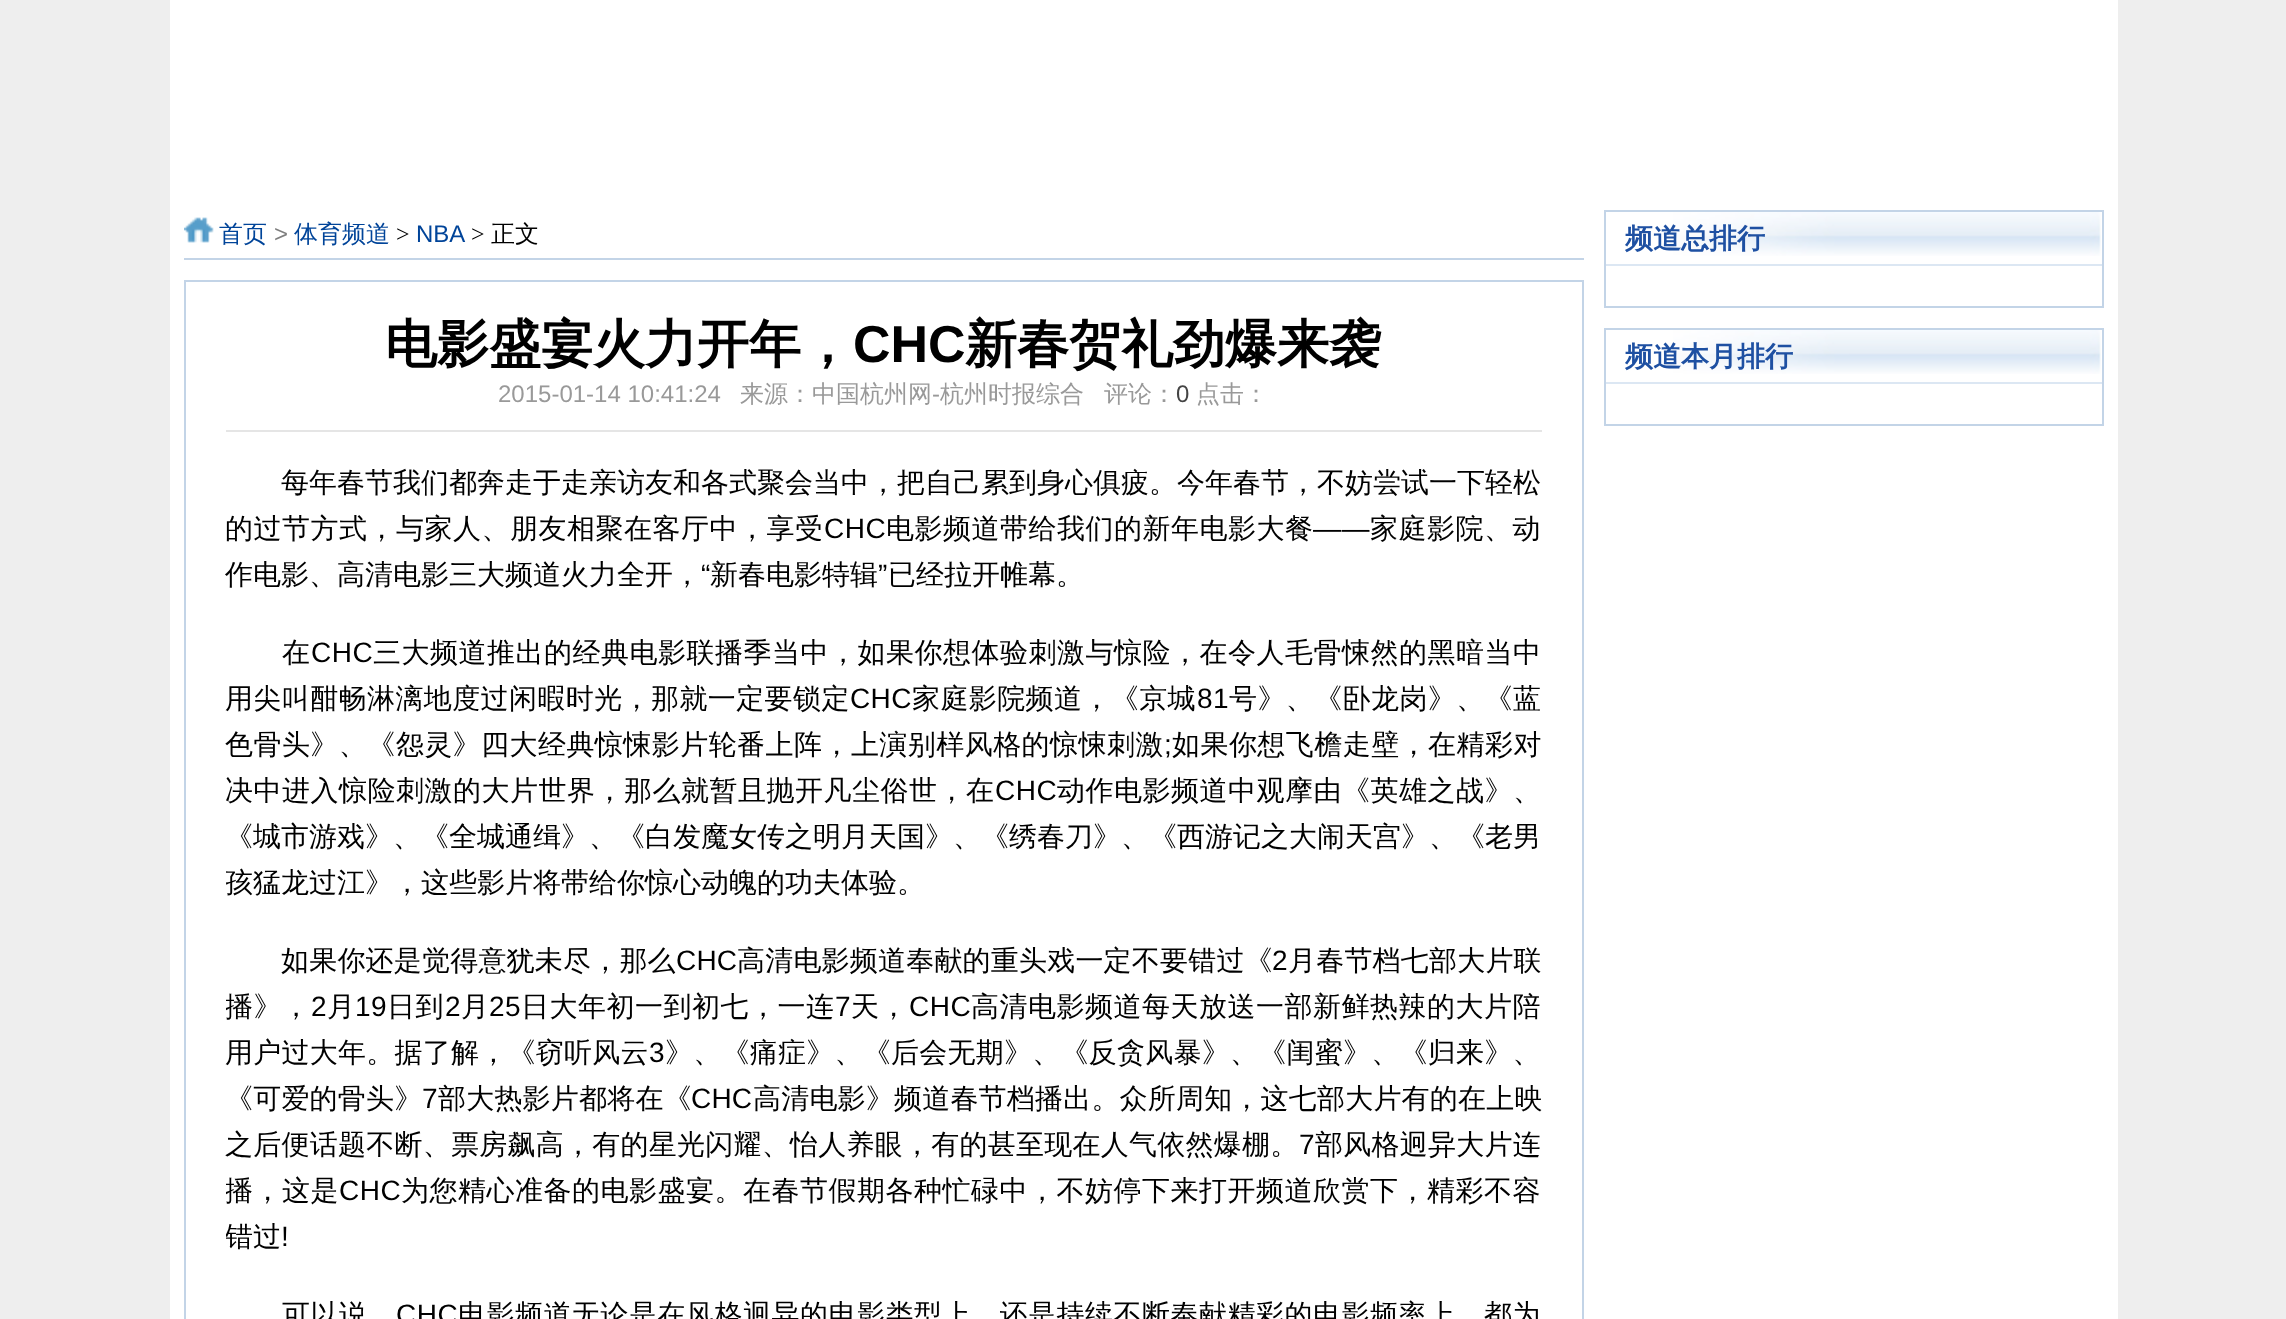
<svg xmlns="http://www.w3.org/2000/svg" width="2286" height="1319">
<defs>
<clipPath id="clip1"><rect x="226" y="614" width="1316" height="308"/></clipPath>
<clipPath id="clip2"><rect x="226" y="922" width="1316" height="354"/></clipPath>
</defs>
<rect width="100%" height="100%" fill="#eee"/>
<rect x="170" width="1948" height="1319" fill="#fff"/>
<image x="184" y="217" width="30" height="26" href="media/1.png"/>
<rect x="184" y="258" width="1400" height="2" fill="#c3d4e7"/>
<text x="219" y="242" style="font-family:WenQuanYi Zen Hei;font-size:24px;font-weight:500;fill:#049">首页</text>
<text x="274" y="242" style="font-family:Liberation Sans;font-size:24px;fill:#7e7e7e">&gt;</text>
<text x="294" y="242" style="font-family:WenQuanYi Zen Hei;font-size:24px;font-weight:500;fill:#049">体育频道</text>
<text x="396" y="242" style="font-family:Liberation Serif;font-size:24px;fill:#000">&gt;</text>
<text x="416" y="242" style="font-family:Liberation Sans;font-size:24px;fill:#049">NBA</text>
<text x="471" y="242" style="font-family:Liberation Serif;font-size:24px;fill:#000">&gt;</text>
<text x="491" y="242" style="font-family:WenQuanYi Zen Hei;font-size:24px;font-weight:500;fill:#000">正文</text>
<rect x="185" y="281" width="1398" height="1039" fill="none" stroke="#c3d4e7" stroke-width="2"/>
<rect x="226" y="430" width="1316" height="2" fill="#e5e5e5"/>
<text x="385" y="362" style="font-family:WenQuanYi Zen Hei;font-size:52px;font-weight:bold;fill:#000">电影盛宴火力开年，</text>
<text x="853" y="362" style="font-family:Liberation Sans;font-size:52px;font-weight:bold;fill:#000">CHC</text>
<text x="965" y="362" style="font-family:WenQuanYi Zen Hei;font-size:52px;font-weight:bold;fill:#000">新春贺礼劲爆来袭</text>
<text x="498" y="402" style="font-family:Liberation Sans;font-size:24px;fill:#999">2015-01-14 10:41:24</text>
<text x="740" y="402" style="font-family:WenQuanYi Zen Hei;font-size:24px;font-weight:500;fill:#999">来源：中国杭州网</text>
<text x="932" y="402" style="font-family:Liberation Sans;font-size:24px;fill:#999">-</text>
<text x="940" y="402" style="font-family:WenQuanYi Zen Hei;font-size:24px;font-weight:500;fill:#999">杭州时报综合</text>
<text x="1104" y="402" style="font-family:WenQuanYi Zen Hei;font-size:24px;font-weight:500;fill:#999">评论：</text>
<text x="1176" y="402" style="font-family:Liberation Sans;font-size:24px;fill:#444">0</text>
<text x="1196" y="402" style="font-family:WenQuanYi Zen Hei;font-size:24px;font-weight:500;fill:#999">点击：</text>
<text x="281" y="492" style="font-family:WenQuanYi Zen Hei;font-size:28px;font-weight:500;fill:#000">每年春节我们都奔走于走亲访友和各式聚会当中，把自己累到身心俱疲。今年春节，不妨尝试一下轻松</text>
<text x="225" y="538" style="font-family:WenQuanYi Zen Hei;font-size:28px;font-weight:500;letter-spacing:0.5px;fill:#000">的过节方式，与家人、朋友相聚在客厅中，享受</text>
<text x="824" y="538" style="font-family:Liberation Sans;font-size:28px;letter-spacing:0.5px;fill:#000">CHC</text>
<text x="886" y="538" style="font-family:WenQuanYi Zen Hei;font-size:28px;font-weight:500;letter-spacing:0.5px;fill:#000">电影频道带给我们的新年电影大餐</text>
<text x="1313" y="538" style="font-family:Liberation Sans;font-size:28px;letter-spacing:0.5px;fill:#000">——</text>
<text x="1370" y="538" style="font-family:WenQuanYi Zen Hei;font-size:28px;font-weight:500;letter-spacing:0.5px;fill:#000">家庭影院、动</text>
<text x="225" y="584" style="font-family:WenQuanYi Zen Hei;font-size:28px;font-weight:500;fill:#000">作电影、高清电影三大频道火力全开，</text>
<text x="701" y="584" style="font-family:Liberation Sans;font-size:28px;fill:#000">“</text>
<text x="710" y="584" style="font-family:WenQuanYi Zen Hei;font-size:28px;font-weight:500;fill:#000">新春电影特辑</text>
<text x="878" y="584" style="font-family:Liberation Sans;font-size:28px;fill:#000">”</text>
<text x="888" y="584" style="font-family:WenQuanYi Zen Hei;font-size:28px;font-weight:500;fill:#000">已经拉开帷幕。</text>
<text x="282" y="662" style="font-family:WenQuanYi Zen Hei;font-size:28px;font-weight:500;letter-spacing:0.5px;fill:#000">在</text>
<text x="311" y="662" style="font-family:Liberation Sans;font-size:28px;letter-spacing:0.5px;fill:#000">CHC</text>
<text x="373" y="662" style="font-family:WenQuanYi Zen Hei;font-size:28px;font-weight:500;letter-spacing:0.5px;fill:#000">三大频道推出的经典电影联播季当中，如果你想体验刺激与惊险，在令人毛骨悚然的黑暗当中</text>
<text x="225" y="708" style="font-family:WenQuanYi Zen Hei;font-size:28px;font-weight:500;letter-spacing:0.4px;fill:#000">用尖叫酣畅淋漓地度过闲暇时光，那就一定要锁定</text>
<text x="850" y="708" style="font-family:Liberation Sans;font-size:28px;letter-spacing:0.4px;fill:#000">CHC</text>
<text x="912" y="708" style="font-family:WenQuanYi Zen Hei;font-size:28px;font-weight:500;letter-spacing:0.4px;fill:#000">家庭影院频道，《京城</text>
<text x="1197" y="708" style="font-family:Liberation Sans;font-size:28px;letter-spacing:0.4px;fill:#000">81</text>
<text x="1229" y="708" style="font-family:WenQuanYi Zen Hei;font-size:28px;font-weight:500;letter-spacing:0.4px;fill:#000">号》、《卧龙岗》、《蓝</text>
<text x="225" y="754" style="font-family:WenQuanYi Zen Hei;font-size:28px;font-weight:500;letter-spacing:0.45px;fill:#000">色骨头》、《怨灵》四大经典惊悚影片轮番上阵，上演别样风格的惊悚刺激</text>
<text x="1164" y="754" style="font-family:Liberation Sans;font-size:28px;letter-spacing:0.45px;fill:#000">;</text>
<text x="1172" y="754" style="font-family:WenQuanYi Zen Hei;font-size:28px;font-weight:500;letter-spacing:0.45px;fill:#000">如果你想飞檐走壁，在精彩对</text>
<text x="225" y="800" style="font-family:WenQuanYi Zen Hei;font-size:28px;font-weight:500;letter-spacing:0.5px;fill:#000">决中进入惊险刺激的大片世界，那么就暂且抛开凡尘俗世，在</text>
<text x="995" y="800" style="font-family:Liberation Sans;font-size:28px;letter-spacing:0.5px;fill:#000">CHC</text>
<text x="1057" y="800" style="font-family:WenQuanYi Zen Hei;font-size:28px;font-weight:500;letter-spacing:0.5px;fill:#000">动作电影频道中观摩由《英雄之战》、</text>
<text x="225" y="846" style="font-family:WenQuanYi Zen Hei;font-size:28px;font-weight:500;fill:#000">《城市游戏》、《全城通缉》、《白发魔女传之明月天国》、《绣春刀》、《西游记之大闹天宫》、《老男</text>
<g clip-path="url(#clip1)">
<text x="225" y="892" style="font-family:WenQuanYi Zen Hei;font-size:28px;font-weight:500;fill:#000">孩猛龙过江》，这些影片将带给你惊心动魄的功夫体验。</text>
</g>
<text x="281" y="970" style="font-family:WenQuanYi Zen Hei;font-size:28px;font-weight:500;letter-spacing:0.2px;fill:#000">如果你还是觉得意犹未尽，那么</text>
<text x="676" y="970" style="font-family:Liberation Sans;font-size:28px;letter-spacing:0.2px;fill:#000">CHC</text>
<text x="737" y="970" style="font-family:WenQuanYi Zen Hei;font-size:28px;font-weight:500;letter-spacing:0.2px;fill:#000">高清电影频道奉献的重头戏一定不要错过《</text>
<text x="1272" y="970" style="font-family:Liberation Sans;font-size:28px;letter-spacing:0.2px;fill:#000">2</text>
<text x="1288" y="970" style="font-family:WenQuanYi Zen Hei;font-size:28px;font-weight:500;letter-spacing:0.2px;fill:#000">月春节档七部大片联</text>
<g clip-path="url(#clip2)">
<text x="225" y="1016" style="font-family:WenQuanYi Zen Hei;font-size:28px;font-weight:500;letter-spacing:0.5px;fill:#000">播》，</text>
</g>
<text x="311" y="1016" style="font-family:Liberation Sans;font-size:28px;letter-spacing:0.5px;fill:#000">2</text>
<text x="327" y="1016" style="font-family:WenQuanYi Zen Hei;font-size:28px;font-weight:500;letter-spacing:0.5px;fill:#000">月</text>
<text x="355" y="1016" style="font-family:Liberation Sans;font-size:28px;letter-spacing:0.5px;fill:#000">19</text>
<text x="387" y="1016" style="font-family:WenQuanYi Zen Hei;font-size:28px;font-weight:500;letter-spacing:0.5px;fill:#000">日到</text>
<text x="445" y="1016" style="font-family:Liberation Sans;font-size:28px;letter-spacing:0.5px;fill:#000">2</text>
<text x="461" y="1016" style="font-family:WenQuanYi Zen Hei;font-size:28px;font-weight:500;letter-spacing:0.5px;fill:#000">月</text>
<text x="489" y="1016" style="font-family:Liberation Sans;font-size:28px;letter-spacing:0.5px;fill:#000">25</text>
<text x="521" y="1016" style="font-family:WenQuanYi Zen Hei;font-size:28px;font-weight:500;letter-spacing:0.5px;fill:#000">日大年初一到初七，一连</text>
<text x="835" y="1016" style="font-family:Liberation Sans;font-size:28px;letter-spacing:0.5px;fill:#000">7</text>
<text x="851" y="1016" style="font-family:WenQuanYi Zen Hei;font-size:28px;font-weight:500;letter-spacing:0.5px;fill:#000">天，</text>
<text x="909" y="1016" style="font-family:Liberation Sans;font-size:28px;letter-spacing:0.5px;fill:#000">CHC</text>
<text x="971" y="1016" style="font-family:WenQuanYi Zen Hei;font-size:28px;font-weight:500;letter-spacing:0.5px;fill:#000">高清电影频道每天放送一部新鲜热辣的大片陪</text>
<text x="225" y="1062" style="font-family:WenQuanYi Zen Hei;font-size:28px;font-weight:500;letter-spacing:0.25px;fill:#000">用户过大年。据了解，《窃听风云</text>
<text x="649" y="1062" style="font-family:Liberation Sans;font-size:28px;letter-spacing:0.25px;fill:#000">3</text>
<text x="665" y="1062" style="font-family:WenQuanYi Zen Hei;font-size:28px;font-weight:500;letter-spacing:0.25px;fill:#000">》、《痛症》、《后会无期》、《反贪风暴》、《闺蜜》、《归来》、</text>
<text x="225" y="1108" style="font-family:WenQuanYi Zen Hei;font-size:28px;font-weight:500;letter-spacing:0.2px;fill:#000">《可爱的骨头》</text>
<text x="422" y="1108" style="font-family:Liberation Sans;font-size:28px;letter-spacing:0.2px;fill:#000">7</text>
<text x="438" y="1108" style="font-family:WenQuanYi Zen Hei;font-size:28px;font-weight:500;letter-spacing:0.2px;fill:#000">部大热影片都将在《</text>
<text x="691" y="1108" style="font-family:Liberation Sans;font-size:28px;letter-spacing:0.2px;fill:#000">CHC</text>
<text x="753" y="1108" style="font-family:WenQuanYi Zen Hei;font-size:28px;font-weight:500;letter-spacing:0.2px;fill:#000">高清电影》频道春节档播出。众所周知，这七部大片有的在上映</text>
<text x="225" y="1154" style="font-family:WenQuanYi Zen Hei;font-size:28px;font-weight:500;letter-spacing:0.25px;fill:#000">之后便话题不断、票房飙高，有的星光闪耀、怡人养眼，有的甚至现在人气依然爆棚。</text>
<text x="1299" y="1154" style="font-family:Liberation Sans;font-size:28px;letter-spacing:0.25px;fill:#000">7</text>
<text x="1315" y="1154" style="font-family:WenQuanYi Zen Hei;font-size:28px;font-weight:500;letter-spacing:0.25px;fill:#000">部风格迥异大片连</text>
<g clip-path="url(#clip2)">
<text x="225" y="1200" style="font-family:WenQuanYi Zen Hei;font-size:28px;font-weight:500;letter-spacing:0.5px;fill:#000">播，这是</text>
</g>
<text x="339" y="1200" style="font-family:Liberation Sans;font-size:28px;letter-spacing:0.5px;fill:#000">CHC</text>
<text x="401" y="1200" style="font-family:WenQuanYi Zen Hei;font-size:28px;font-weight:500;letter-spacing:0.5px;fill:#000">为您精心准备的电影盛宴。在春节假期各种忙碌中，不妨停下来打开频道欣赏下，精彩不容</text>
<g clip-path="url(#clip2)">
<text x="225" y="1246" style="font-family:WenQuanYi Zen Hei;font-size:28px;font-weight:500;fill:#000">错过</text>
</g>
<text x="281" y="1246" style="font-family:Liberation Sans;font-size:28px;fill:#000">!</text>
<text x="282" y="1324" style="font-family:WenQuanYi Zen Hei;font-size:28px;font-weight:500;letter-spacing:0.5px;fill:#000">可以说</text>
<text x="396" y="1324" style="font-family:Liberation Sans;font-size:28px;letter-spacing:0.5px;fill:#000">CHC</text>
<text x="458" y="1324" style="font-family:WenQuanYi Zen Hei;font-size:28px;font-weight:500;letter-spacing:0.5px;fill:#000">电影频道无论是在风格迥异的电影类型上，还是持续不断奉献精彩的电影频率上，都为</text>
<rect x="1605" y="211" width="498" height="96" fill="none" stroke="#c3d4e7" stroke-width="2"/>
<image x="1673" y="212" width="428" height="44" href="media/2.png"/>
<rect x="1606" y="264" width="496" height="2" fill="#dce7f3"/>
<text x="1625" y="248" style="font-family:WenQuanYi Zen Hei;font-size:28px;font-weight:bold;fill:#1e50a2">频道总排行</text>
<rect x="1605" y="329" width="498" height="96" fill="none" stroke="#c3d4e7" stroke-width="2"/>
<image x="1673" y="330" width="428" height="44" href="media/2.png"/>
<rect x="1606" y="382" width="496" height="2" fill="#dce7f3"/>
<text x="1625" y="366" style="font-family:WenQuanYi Zen Hei;font-size:28px;font-weight:bold;fill:#1e50a2">频道本月排行</text>
</svg>
